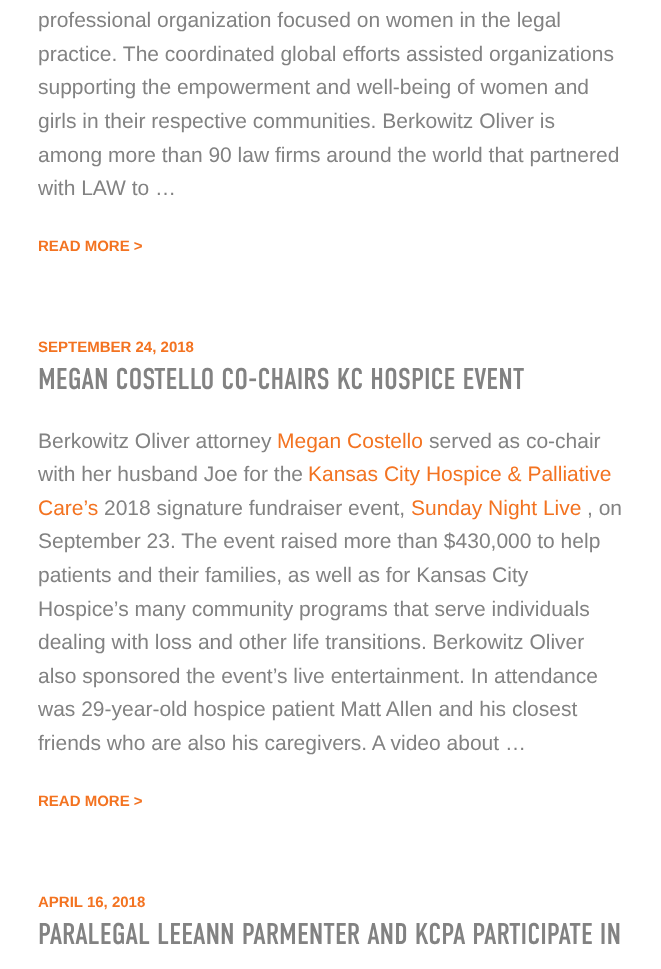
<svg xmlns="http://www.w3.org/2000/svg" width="661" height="969">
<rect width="100%" height="100%" fill="#fff"/>
<text x="38" y="27" style="font-family:Liberation Sans;font-size:21px;fill:#828282">professional organization focused on women in the legal</text>
<text x="38" y="61" style="font-family:Liberation Sans;font-size:21px;fill:#828282">practice. The coordinated global efforts assisted organizations</text>
<text x="38" y="94" style="font-family:Liberation Sans;font-size:21px;fill:#828282">supporting the empowerment and well-being of women and</text>
<text x="38" y="128" style="font-family:Liberation Sans;font-size:21px;fill:#828282">girls in their respective communities. Berkowitz Oliver is</text>
<text x="38" y="162" style="font-family:Liberation Sans;font-size:21px;fill:#828282">among more than 90 law firms around the world that partnered</text>
<text x="38" y="195" style="font-family:Liberation Sans;font-size:21px;fill:#828282">with LAW to …</text>
<text x="38" y="251" style="font-family:Liberation Sans;font-size:15px;font-weight:bold;fill:#f37321">READ MORE &gt;</text>
<text x="38" y="352" style="font-family:Liberation Sans;font-size:15px;font-weight:bold;fill:#f37321">SEPTEMBER 24, 2018</text>
<text x="38" y="389" style="font-family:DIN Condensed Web;font-size:30px;fill:#828282">MEGAN COSTELLO CO-CHAIRS KC HOSPICE EVENT</text>
<text x="38" y="448" style="font-family:Liberation Sans;font-size:21px;fill:#828282">Berkowitz Oliver attorney</text>
<text x="277" y="448" style="font-family:Liberation Sans;font-size:21px;fill:#f37321">Megan Costello</text>
<text x="429" y="448" style="font-family:Liberation Sans;font-size:21px;fill:#828282">served as co-chair</text>
<text x="38" y="481" style="font-family:Liberation Sans;font-size:21px;fill:#828282">with her husband Joe for the</text>
<text x="308" y="481" style="font-family:Liberation Sans;font-size:21px;fill:#f37321">Kansas City Hospice &amp; Palliative</text>
<text x="38" y="515" style="font-family:Liberation Sans;font-size:21px;fill:#f37321">Care’s</text>
<text x="104" y="515" style="font-family:Liberation Sans;font-size:21px;fill:#828282">2018 signature fundraiser event,</text>
<text x="411" y="515" style="font-family:Liberation Sans;font-size:21px;fill:#f37321">Sunday Night Live</text>
<text x="587" y="515" style="font-family:Liberation Sans;font-size:21px;fill:#828282">, on</text>
<text x="38" y="548" style="font-family:Liberation Sans;font-size:21px;fill:#828282">September 23. The event raised more than $430,000 to help</text>
<text x="38" y="582" style="font-family:Liberation Sans;font-size:21px;fill:#828282">patients and their families, as well as for Kansas City</text>
<text x="38" y="616" style="font-family:Liberation Sans;font-size:21px;fill:#828282">Hospice’s many community programs that serve individuals</text>
<text x="38" y="649" style="font-family:Liberation Sans;font-size:21px;fill:#828282">dealing with loss and other life transitions. Berkowitz Oliver</text>
<text x="38" y="683" style="font-family:Liberation Sans;font-size:21px;fill:#828282">also sponsored the event’s live entertainment. In attendance</text>
<text x="38" y="716" style="font-family:Liberation Sans;font-size:21px;fill:#828282">was 29-year-old hospice patient Matt Allen and his closest</text>
<text x="38" y="750" style="font-family:Liberation Sans;font-size:21px;fill:#828282">friends who are also his caregivers. A video about …</text>
<text x="38" y="806" style="font-family:Liberation Sans;font-size:15px;font-weight:bold;fill:#f37321">READ MORE &gt;</text>
<text x="38" y="907" style="font-family:Liberation Sans;font-size:15px;font-weight:bold;fill:#f37321">APRIL 16, 2018</text>
<text x="38" y="944" style="font-family:DIN Condensed Web;font-size:30px;fill:#828282">PARALEGAL LEEANN PARMENTER AND KCPA PARTICIPATE IN</text>
</svg>
